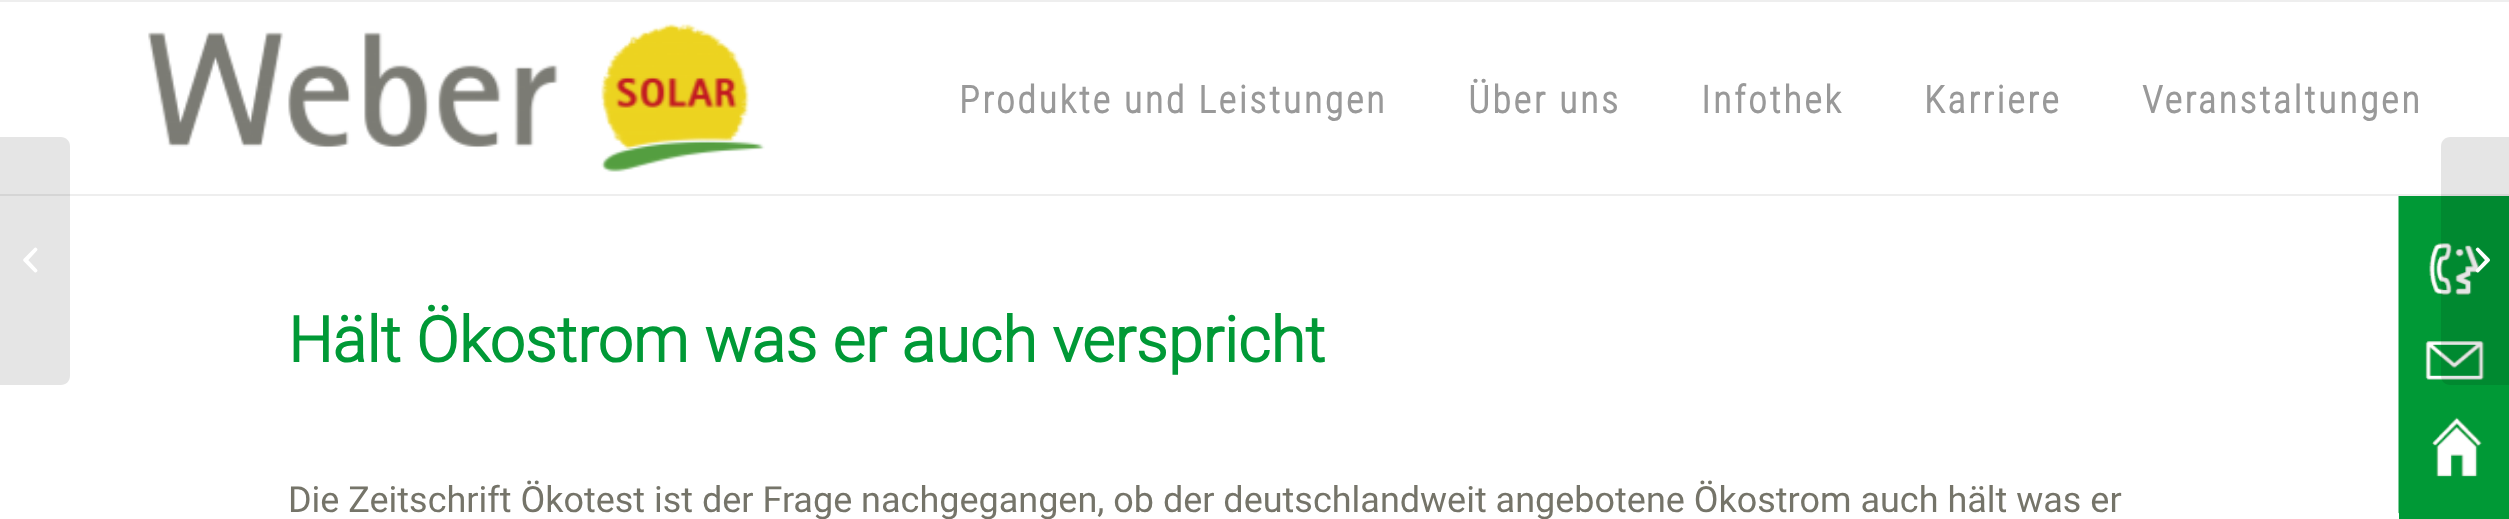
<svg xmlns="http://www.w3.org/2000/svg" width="2509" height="519">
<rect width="100%" height="100%" fill="#fff"/>
<rect width="2509" height="2" fill="#eee"/>
<rect y="194" width="2509" height="2" fill="#eee"/>
<image x="148" y="23" width="617" height="149" href="media/1.png"/>
<text x="959" y="113" style="font-family:Roboto Condensed;font-size:38px;font-weight:bold;letter-spacing:2.7px;fill:#999">Produkte und Leistungen</text>
<text x="1468" y="113" style="font-family:Roboto Condensed;font-size:38px;font-weight:bold;letter-spacing:2.7px;fill:#999">Über uns</text>
<text x="1701" y="113" style="font-family:Roboto Condensed;font-size:38px;font-weight:bold;letter-spacing:2.7px;fill:#999">Infothek</text>
<text x="1924" y="113" style="font-family:Roboto Condensed;font-size:38px;font-weight:bold;letter-spacing:2.7px;fill:#999">Karriere</text>
<text x="2142" y="113" style="font-family:Roboto Condensed;font-size:38px;font-weight:bold;letter-spacing:2.7px;fill:#999">Veranstaltungen</text>
<path d="M0 137h61c5 0 9 4 9 9v230c0 5-4 9-9 9h-61z" fill="#0000001a"/>
<image x="23" y="247" width="15" height="26" href="media/2.png"/>
<rect x="2399" y="512" width="110" height="7" fill="#009936"/>
<image x="2398" y="196" width="111" height="318" href="media/4.png"/>
<path d="M2450 137h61v248h-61c-5 0-9-4-9-9v-230c0-5 4-9 9-9z" fill="#0000001a"/>
<image x="2475" y="247" width="15" height="26" href="media/3.png"/>
<text x="288" y="362" style="font-family:Roboto;font-size:63px;font-weight:bold;fill:#009936">Hält Ökostrom was er auch verspricht</text>
<text x="288" y="512" style="font-family:Roboto;font-size:36px;fill:#757469">Die Zeitschrift Ökotest ist der Frage nachgegangen, ob der deutschlandweit angebotene Ökostrom auch hält was er</text>
</svg>
